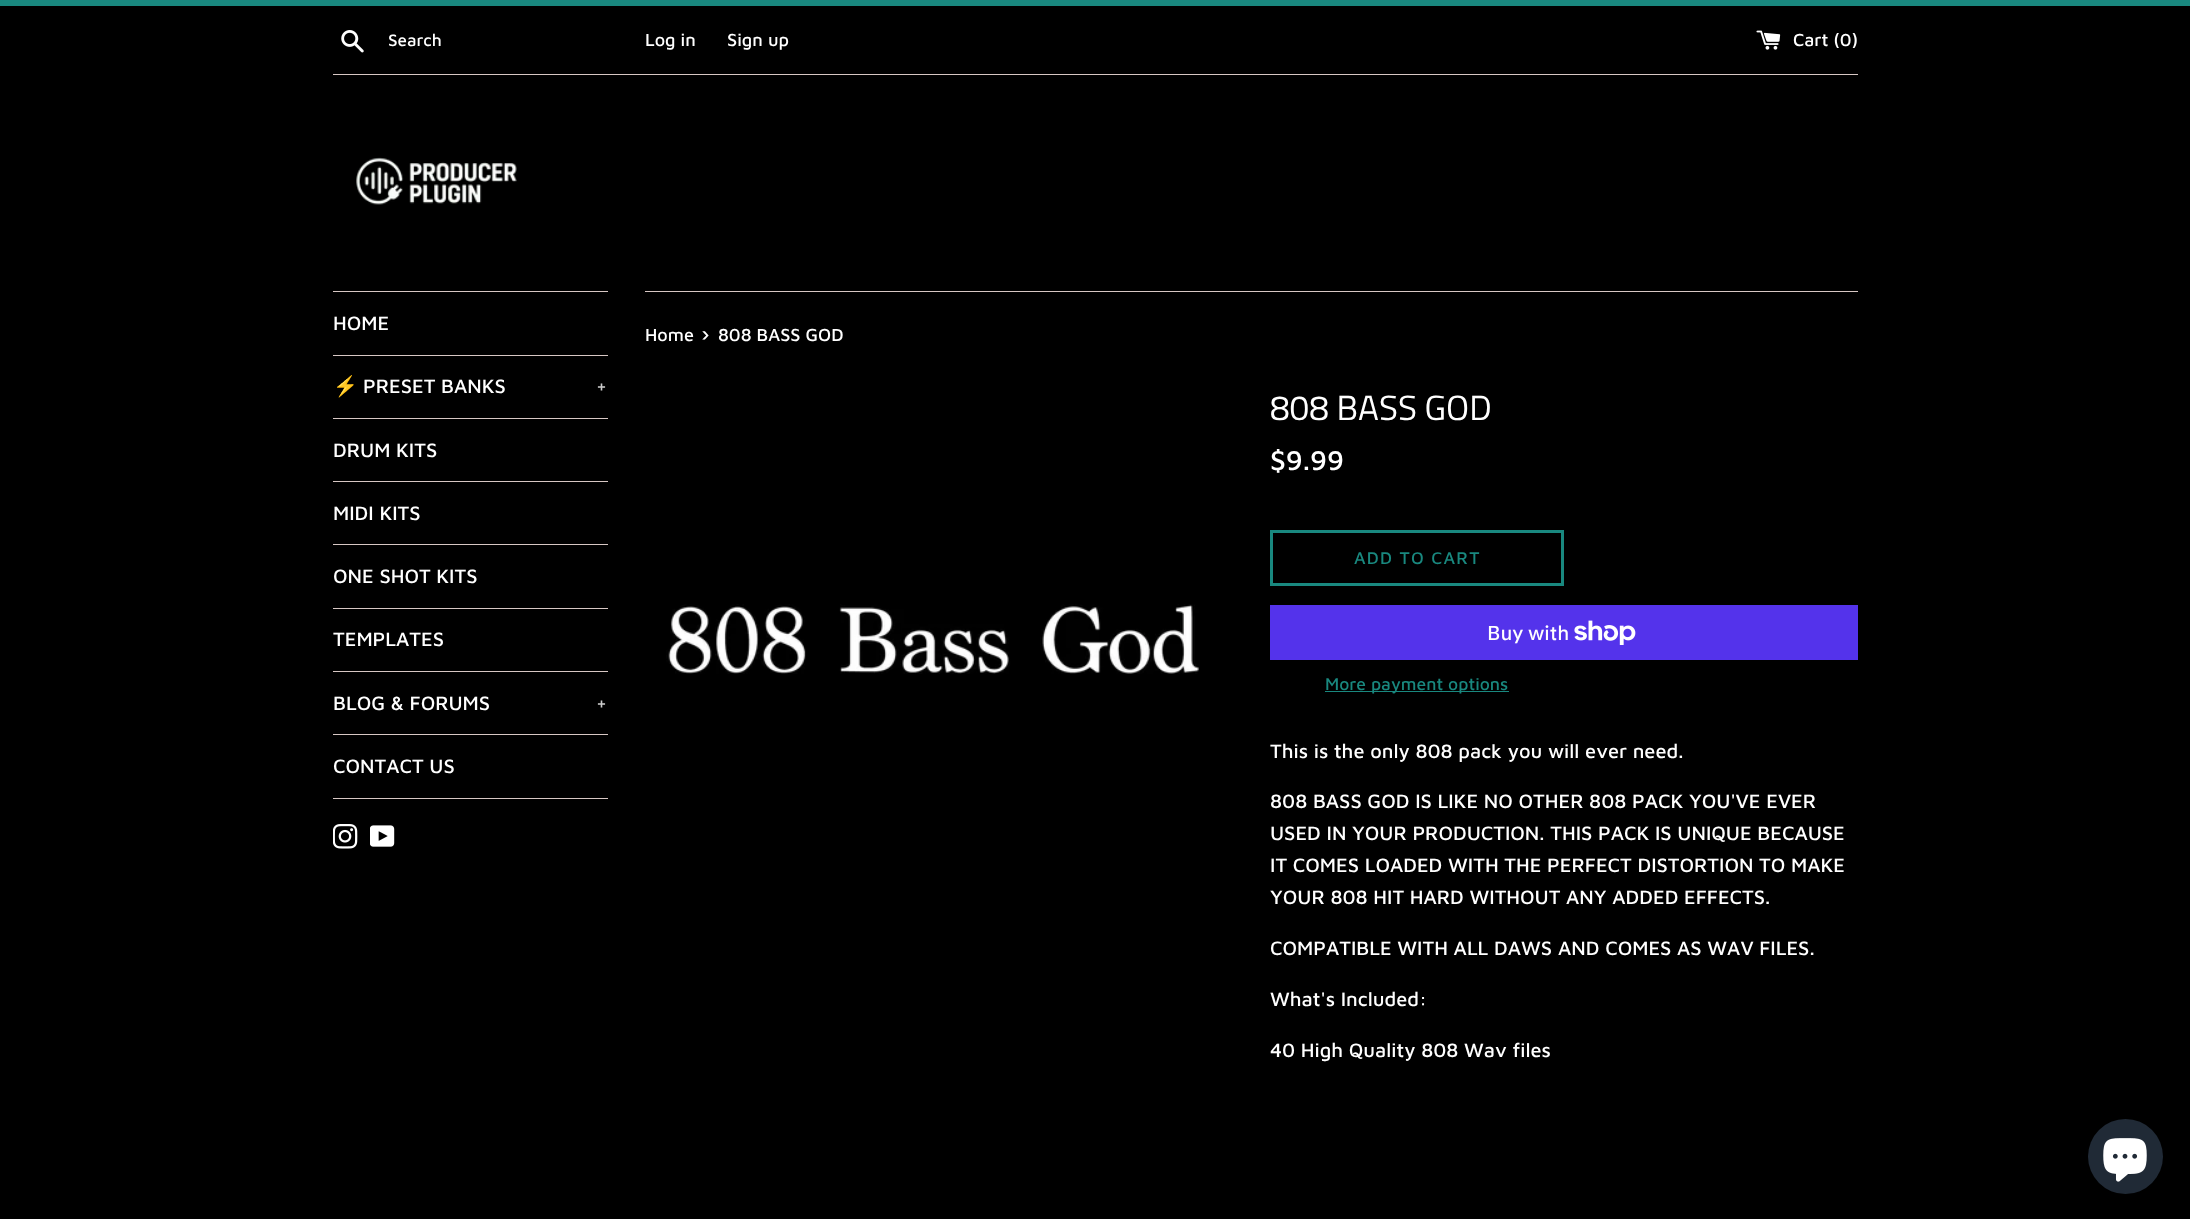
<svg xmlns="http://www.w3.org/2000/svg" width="2190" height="1219">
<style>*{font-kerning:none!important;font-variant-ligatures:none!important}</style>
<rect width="100%" height="100%" fill="#000"/>
<rect width="2190" height="6" fill="#19887f"/>
<image x="341" y="30" width="23" height="23" href="media/1.png"/>
<text x="388" y="46" style="font-family:Maven Pro;font-size:17px;font-weight:500;fill:#fff">Search</text>
<text x="645" y="46" style="font-family:Maven Pro;font-size:18px;font-weight:500;fill:#fff">Log in</text>
<text x="727" y="46" style="font-family:Maven Pro;font-size:18px;font-weight:500;fill:#fff">Sign up</text>
<image x="1756" y="30" width="25" height="20" href="media/2.png"/>
<text x="1793" y="46" style="font-family:Maven Pro;font-size:18px;font-weight:500;fill:#fff">Cart (0)</text>
<rect x="333" y="74" width="1525" height="1" fill="#d7c7c4"/>
<image x="356" y="157" width="161" height="48" href="media/3.png"/>
<rect x="333" y="291" width="275" height="1" fill="#d7c7c4"/>
<rect x="333" y="355" width="275" height="1" fill="#d7c7c4"/>
<text x="333" y="330" style="font-family:Maven Pro;font-size:20px;font-weight:500;fill:#fff">HOME</text>
<rect x="333" y="418" width="275" height="1" fill="#d7c7c4"/>
<text x="333" y="393" style="font-family:Noto Color Emoji;font-size:20px;fill:#fff">⚡</text>
<text x="363" y="393" style="font-family:Maven Pro;font-size:20px;font-weight:500;fill:#fff">PRESET BANKS</text>
<text x="596" y="393" style="font-family:Maven Pro;font-size:20px;font-weight:500;fill:#ccc">+</text>
<rect x="333" y="481" width="275" height="1" fill="#d7c7c4"/>
<text x="333" y="457" style="font-family:Maven Pro;font-size:20px;font-weight:500;fill:#fff">DRUM KITS</text>
<rect x="333" y="544" width="275" height="1" fill="#d7c7c4"/>
<text x="333" y="520" style="font-family:Maven Pro;font-size:20px;font-weight:500;fill:#fff">MIDI KITS</text>
<rect x="333" y="608" width="275" height="1" fill="#d7c7c4"/>
<text x="333" y="583" style="font-family:Maven Pro;font-size:20px;font-weight:500;fill:#fff">ONE SHOT KITS</text>
<rect x="333" y="671" width="275" height="1" fill="#d7c7c4"/>
<text x="333" y="646" style="font-family:Maven Pro;font-size:20px;font-weight:500;fill:#fff">TEMPLATES</text>
<rect x="333" y="734" width="275" height="1" fill="#d7c7c4"/>
<text x="333" y="710" style="font-family:Maven Pro;font-size:20px;font-weight:500;fill:#fff">BLOG &amp; FORUMS</text>
<text x="596" y="710" style="font-family:Maven Pro;font-size:20px;font-weight:500;fill:#ccc">+</text>
<rect x="333" y="798" width="275" height="1" fill="#d7c7c4"/>
<text x="333" y="773" style="font-family:Maven Pro;font-size:20px;font-weight:500;fill:#fff">CONTACT US</text>
<image x="333" y="824" width="25" height="25" href="media/4.png"/>
<image x="370" y="825" width="25" height="22" href="media/5.png"/>
<rect x="645" y="291" width="1213" height="1" fill="#d7c7c4"/>
<text x="645" y="341" style="font-family:Maven Pro;font-size:18px;font-weight:500;fill:#fff">Home</text>
<text x="701" y="341" style="font-family:Maven Pro;font-size:22px;font-weight:500;fill:#fff">›</text>
<text x="718" y="341" style="font-family:Maven Pro;font-size:18px;font-weight:500;fill:#fff">808 BASS GOD</text>
<image x="666" y="604" width="533" height="70" href="media/6.png"/>
<text x="1270" y="420" style="font-family:Titillium Web;font-size:35px;fill:#fff">808 BASS GOD</text>
<text x="1270" y="470" style="font-family:Maven Pro;font-size:28px;font-weight:500;fill:#fff">$9.99</text>
<rect x="1271.5" y="531.5" width="291" height="53" fill="none" stroke="#19887f" stroke-width="3"/>
<text x="1354" y="564" style="font-family:Maven Pro;font-size:17.5px;font-weight:500;letter-spacing:1.25px;fill:#19887f">ADD TO CART</text>
<rect x="1270" y="605" width="588" height="55" fill="#5433eb"/>
<text x="1487" y="640" style="font-family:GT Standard;font-size:20px;font-weight:500;fill:#fff">Buy with</text>
<image x="1574" y="620" width="62" height="25" href="media/7.png"/>
<rect x="1325" y="691" width="184" height="1" fill="#19887f"/>
<text x="1325" y="690" style="font-family:Maven Pro;font-size:17.5px;font-weight:500;fill:#19887f">More payment options</text>
<text x="1270" y="758" style="font-family:Maven Pro;font-size:20px;font-weight:500;fill:#fff">This is the only 808 pack you will ever need.</text>
<text x="1270" y="808" style="font-family:Maven Pro;font-size:20px;font-weight:500;fill:#fff">808 BASS GOD IS LIKE NO OTHER 808 PACK YOU'VE EVER</text>
<text x="1270" y="840" style="font-family:Maven Pro;font-size:20px;font-weight:500;fill:#fff">USED IN YOUR PRODUCTION. THIS PACK IS UNIQUE BECAUSE</text>
<text x="1270" y="872" style="font-family:Maven Pro;font-size:20px;font-weight:500;fill:#fff">IT COMES LOADED WITH THE PERFECT DISTORTION TO MAKE</text>
<text x="1270" y="904" style="font-family:Maven Pro;font-size:20px;font-weight:500;fill:#fff">YOUR 808 HIT HARD WITHOUT ANY ADDED EFFECTS.</text>
<text x="1270" y="955" style="font-family:Maven Pro;font-size:20px;font-weight:500;fill:#fff">COMPATIBLE WITH ALL DAWS</text>
<text x="1558" y="955" style="font-family:Maven Pro;font-size:20px;font-weight:500;fill:#fff">AND COMES AS WAV FILES.</text>
<text x="1270" y="1006" style="font-family:Maven Pro;font-size:20px;font-weight:500;fill:#fff">What's Included:</text>
<text x="1270" y="1057" style="font-family:Maven Pro;font-size:20px;font-weight:500;fill:#fff">40 High Quality 808 Wav files</text>
<circle cx="2125.5" cy="1156.5" r="37.5" fill="#202a36"/>
<image x="2103" y="1138" width="44" height="44" href="media/8.png"/>
</svg>
